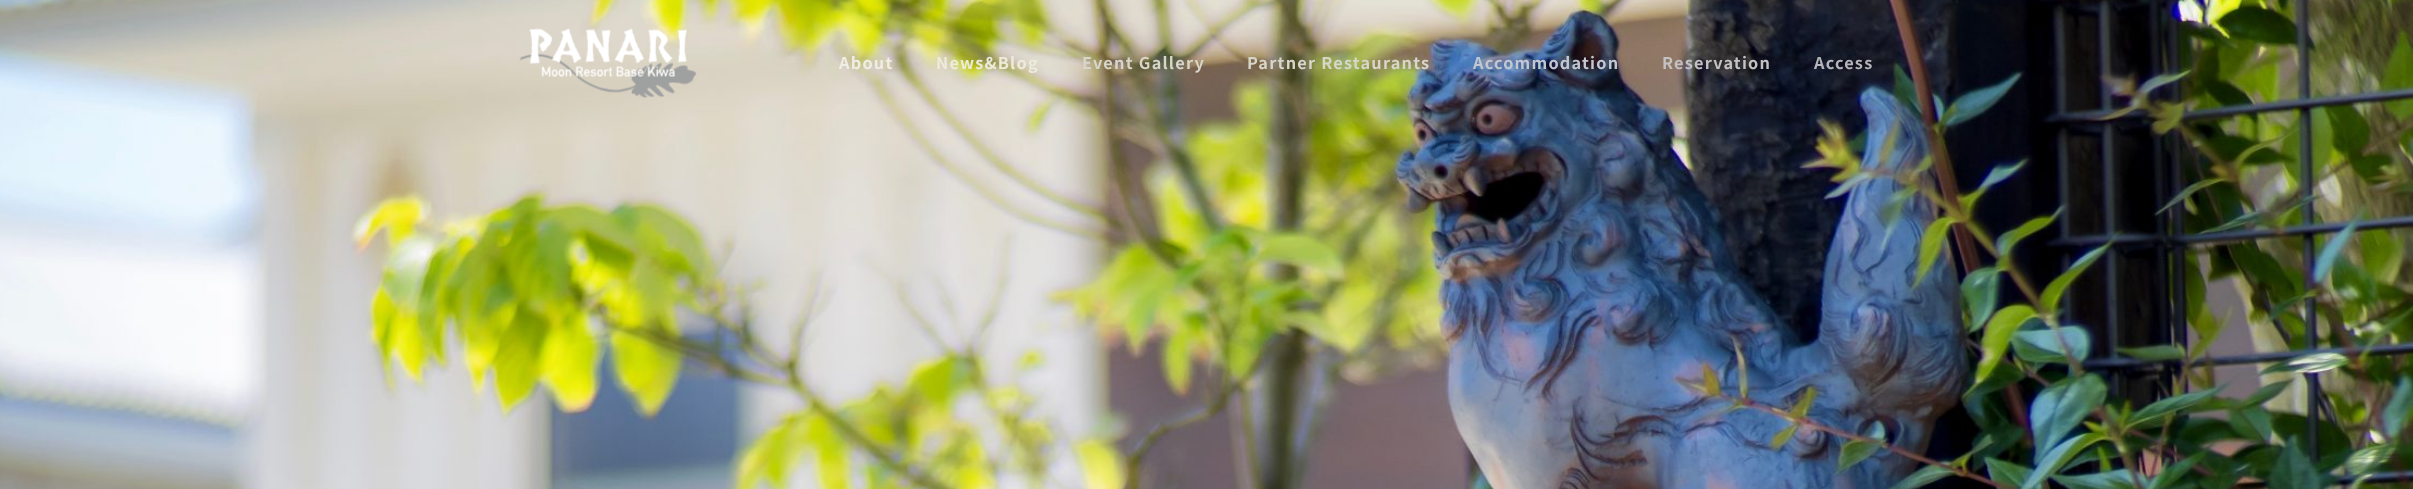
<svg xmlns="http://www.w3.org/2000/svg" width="2413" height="489">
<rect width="100%" height="100%" fill="#fff"/>
<image x="0" y="0" width="2413" height="489" href="media/1.png"/>
<image x="519" y="28" width="178" height="70" href="media/2.png"/>
<text x="839" y="69" style="font-family:Noto Sans JP;font-size:16.25px;font-weight:bold;letter-spacing:1.25px;fill:#f0eee4">About</text>
<text x="936" y="69" style="font-family:Noto Sans JP;font-size:16.25px;font-weight:bold;letter-spacing:1.25px;fill:#edecda">News&amp;Blog</text>
<text x="1082" y="69" style="font-family:Noto Sans JP;font-size:16.25px;font-weight:bold;letter-spacing:1.25px;fill:#d8d5cb">Event Gallery</text>
<text x="1247" y="69" style="font-family:Noto Sans JP;font-size:16.25px;font-weight:bold;letter-spacing:1.25px;fill:#d8d5cb">Partner Restaurants</text>
<text x="1473" y="69" style="font-family:Noto Sans JP;font-size:16.25px;font-weight:bold;letter-spacing:1.25px;fill:#c3c7d1">Accommodation</text>
<text x="1662" y="69" style="font-family:Noto Sans JP;font-size:16.25px;font-weight:bold;letter-spacing:1.25px;fill:#c4c2c3">Reservation</text>
<text x="1814" y="69" style="font-family:Noto Sans JP;font-size:16.25px;font-weight:bold;letter-spacing:1.25px;fill:#b5b6ba">Access</text>
</svg>
